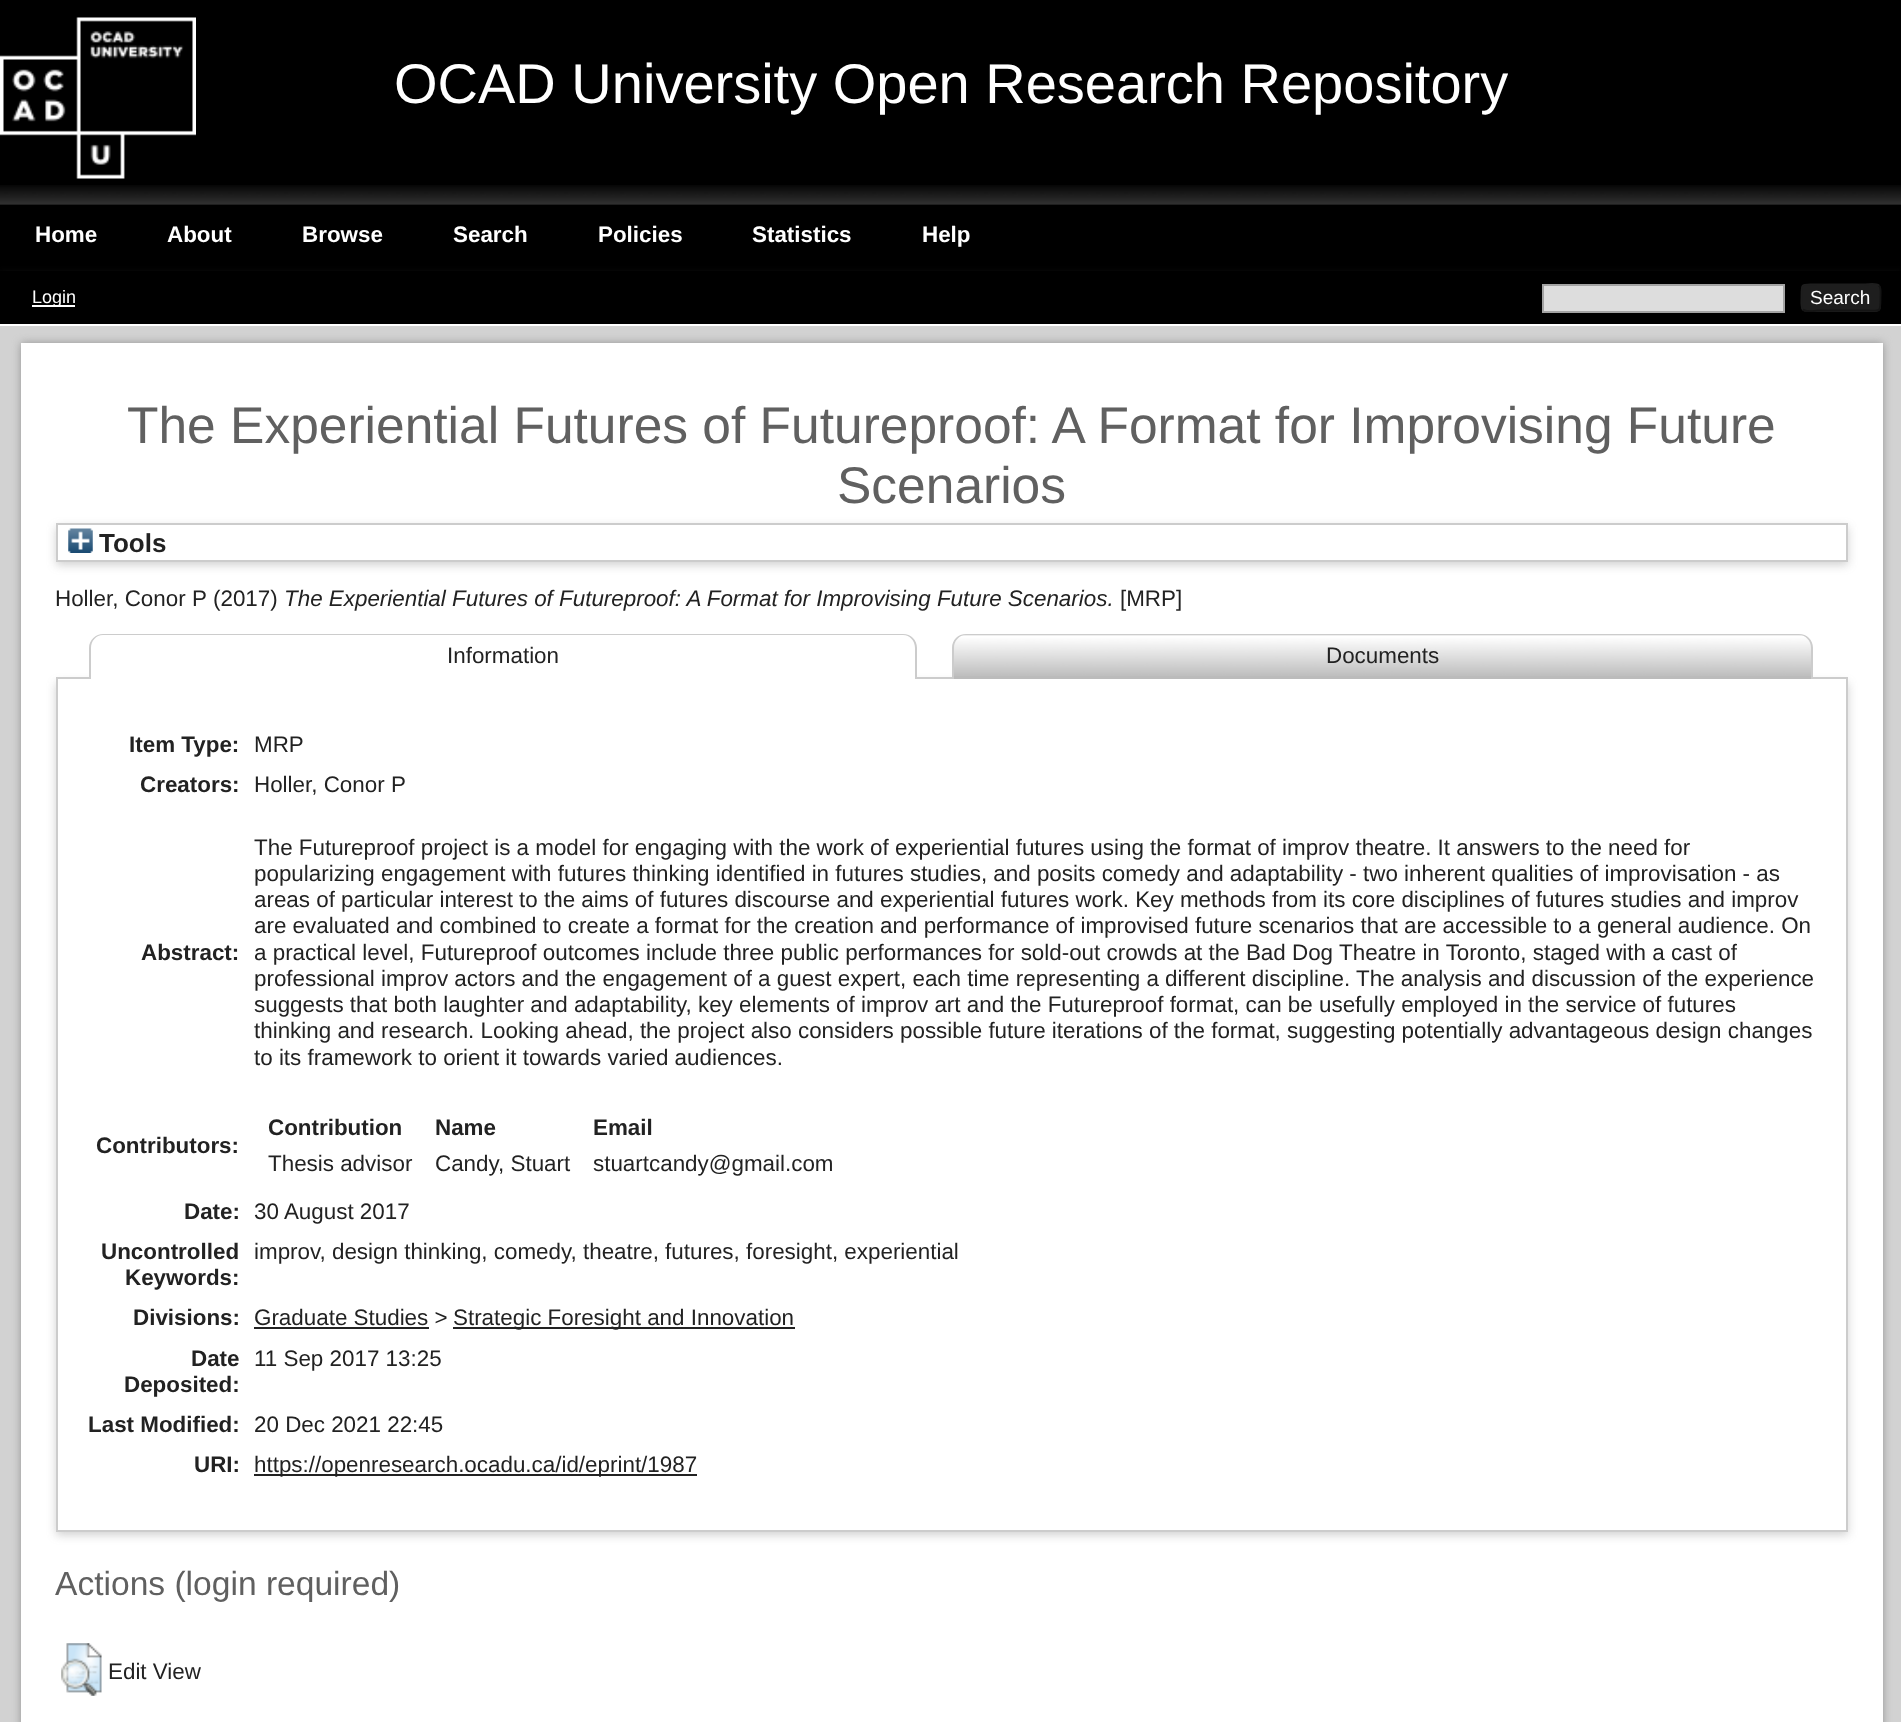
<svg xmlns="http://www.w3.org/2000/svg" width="1901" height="1722">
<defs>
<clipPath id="clip1"><path d="M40 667h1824v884h-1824zm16 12h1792v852h-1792z" clip-rule="evenodd"/></clipPath>
</defs>
<rect width="100%" height="100%" fill="#000"/>
<image x="0" y="17" width="196" height="162" href="media/1.png"/>
<text x="394" y="103" style="font-family:Liberation Sans;font-size:56px;fill:#fff">OCAD University Open Research Repository</text>
<image x="0" y="185" width="1901" height="20" href="media/2.png"/>
<text x="35" y="242" style="font-family:Liberation Sans;font-size:22.4px;font-weight:bold;fill:#fff">Home</text>
<text x="167" y="242" style="font-family:Liberation Sans;font-size:22.4px;font-weight:bold;fill:#fff">About</text>
<text x="302" y="242" style="font-family:Liberation Sans;font-size:22.4px;font-weight:bold;fill:#fff">Browse</text>
<text x="453" y="242" style="font-family:Liberation Sans;font-size:22.4px;font-weight:bold;fill:#fff">Search</text>
<text x="598" y="242" style="font-family:Liberation Sans;font-size:22.4px;font-weight:bold;fill:#fff">Policies</text>
<text x="752" y="242" style="font-family:Liberation Sans;font-size:22.4px;font-weight:bold;fill:#fff">Statistics</text>
<text x="922" y="242" style="font-family:Liberation Sans;font-size:22.4px;font-weight:bold;fill:#fff">Help</text>
<rect y="275" width="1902" height="54" fill="#6464644d" filter="blur(5px)"/>
<rect y="271" width="1901" height="53" fill="#000"/>
<rect y="324" width="1901" height="2" fill="#fff"/>
<rect x="32" y="305" width="43" height="2" fill="#fff"/>
<text x="32" y="303" style="font-family:Liberation Sans;font-size:18px;fill:#fff">Login</text>
<rect x="1543" y="285" width="241" height="27" fill="#ddd" stroke="#a3a3a3" stroke-width="2"/>
<rect x="1801" y="284" width="80" height="28" rx="5" fill="#1e1e1e"/>
<path d="M1879 285.5c2.5 2.5 1.5 9 1.5 12c0 15.5 .5 13-16 13h-47c-.5 0-11.5 2-14.5-1" fill="none" stroke="#141414" stroke-width="1.8"/>
<path d="M1803 309.5c-2.5-2.5-1.5-9-1.5-12c0-15.5-.5-13 16-13h47c.5 0 11.5-2 14.5 1" fill="none" stroke="#1e1e1e" stroke-width="1.8"/>
<text x="1810" y="304" style="font-family:Liberation Sans;font-size:19px;fill:#fff">Search</text>
<rect y="326" width="1901" height="1396" fill="#d2d2d2"/>
<rect x="21" y="343" width="1862" height="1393" fill="#949494" filter="blur(4.5px)"/>
<rect x="21" y="343" width="1862" height="1379" fill="#fff"/>
<text x="127" y="443" style="font-family:Liberation Sans;font-size:51.5px;fill:#606060">The Experiential Futures of Futureproof: A Format for Improvising Future</text>
<text x="837" y="503" style="font-family:Liberation Sans;font-size:51.5px;fill:#606060">Scenarios</text>
<rect x="56" y="527" width="1792" height="38" fill="#6464644d" filter="blur(5px)"/>
<rect x="57" y="524" width="1790" height="37" fill="#fff" stroke="#ccc" stroke-width="2"/>
<image x="68" y="528" width="25" height="25" href="media/3.png"/>
<text x="99" y="552" style="font-family:Liberation Sans;font-size:26px;font-weight:bold;fill:#222">Tools</text>
<text x="55" y="606" style="font-family:Liberation Sans;font-size:22.4px;fill:#222">Holler, Conor P</text>
<text x="213" y="606" style="font-family:Liberation Sans;font-size:22.4px;fill:#222">(2017)</text>
<text x="284" y="606" style="font-family:Liberation Sans;font-size:22.4px;font-style:italic;fill:#222">The Experiential Futures of Futureproof: A Format for Improvising Future Scenarios.</text>
<text x="1120" y="606" style="font-family:Liberation Sans;font-size:22.4px;fill:#222">[MRP]</text>
<g clip-path="url(#clip1)">
<rect x="56" y="683" width="1792" height="852" fill="#6464644d" filter="blur(5px)"/>
</g>
<rect x="56" y="677" width="896" height="2" fill="#ccc"/>
<path d="M103 635h800c6.5 0 12 5.5 12 12v32h-824v-32c0-6.5 5.5-12 12-12z" fill="#fff"/>
<path d="M103 634h800c8 0 14 6 14 14v31h-828v-31c0-8 7-14 14-14zm0 1h800c7 0 12 6 12 13v31h-824v-31c0-7 5-13 12-13z" fill="#ccc" fill-rule="evenodd"/>
<text x="447" y="663" style="font-family:Liberation Sans;font-size:22.4px;fill:#222">Information</text>
<rect x="1813" y="677" width="35" height="2" fill="#ccc"/>
<path d="M966 635h833c6.5 0 12 5.5 12 12v32h-857v-32c0-6.5 5.5-12 12-12z" fill="#bbb"/>
<image x="954" y="635" width="857" height="41" href="media/4.png"/>
<path d="M966 634h833c8 0 14 6 14 14v31h-861v-31c0-8 6-14 14-14zm0 1h833c7 0 12 6 12 13v31h-857v-31c0-7 5-13 12-13z" fill="#ccc" fill-rule="evenodd"/>
<text x="1326" y="663" style="font-family:Liberation Sans;font-size:22.4px;fill:#222">Documents</text>
<rect x="1846" y="679" width="2" height="852" fill="#ccc"/>
<rect x="56" y="1530" width="1792" height="2" fill="#ccc"/>
<rect x="56" y="679" width="2" height="852" fill="#ccc"/>
<text x="129" y="752" style="font-family:Liberation Sans;font-size:22.4px;font-weight:bold;fill:#222">Item Type:</text>
<text x="254" y="752" style="font-family:Liberation Sans;font-size:22.4px;fill:#222">MRP</text>
<text x="140" y="792" style="font-family:Liberation Sans;font-size:22.4px;font-weight:bold;fill:#222">Creators:</text>
<text x="254" y="792" style="font-family:Liberation Sans;font-size:22.4px;fill:#222">Holler, Conor P</text>
<text x="141" y="960" style="font-family:Liberation Sans;font-size:22.4px;font-weight:bold;fill:#222">Abstract:</text>
<text x="254" y="855" style="font-family:Liberation Sans;font-size:22.4px;fill:#222">The Futureproof project is a model for engaging with the work of experiential futures using the format of improv theatre. It answers to the need for</text>
<text x="254" y="881" style="font-family:Liberation Sans;font-size:22.4px;fill:#222">popularizing engagement with futures thinking identified in futures studies, and posits comedy and adaptability - two inherent qualities of improvisation - as</text>
<text x="254" y="907" style="font-family:Liberation Sans;font-size:22.4px;fill:#222">areas of particular interest to the aims of futures discourse and experiential futures work. Key methods from its core disciplines of futures studies and improv</text>
<text x="254" y="933" style="font-family:Liberation Sans;font-size:22.4px;fill:#222">are evaluated and combined to create a format for the creation and performance of improvised future scenarios that are accessible to a general audience. On</text>
<text x="254" y="960" style="font-family:Liberation Sans;font-size:22.4px;fill:#222">a practical level, Futureproof outcomes include three public performances for sold-out crowds at the Bad Dog</text>
<text x="1339" y="960" style="font-family:Liberation Sans;font-size:22.4px;fill:#222">Theatre in Toronto, staged with a cast of</text>
<text x="254" y="986" style="font-family:Liberation Sans;font-size:22.4px;fill:#222">professional improv actors and the engagement of a guest expert, each time representing a different discipline.</text>
<text x="1356" y="986" style="font-family:Liberation Sans;font-size:22.4px;fill:#222">The analysis and discussion of the experience</text>
<text x="254" y="1012" style="font-family:Liberation Sans;font-size:22.4px;fill:#222">suggests that both laughter and adaptability, key elements of improv art and the Futureproof format, can be usefully employed in the service of futures</text>
<text x="254" y="1038" style="font-family:Liberation Sans;font-size:22.4px;fill:#222">thinking and research. Looking ahead, the project also considers possible future iterations of the format, suggesting potentially advantageous design changes</text>
<text x="254" y="1065" style="font-family:Liberation Sans;font-size:22.4px;fill:#222">to its framework to orient it towards varied audiences.</text>
<text x="96" y="1153" style="font-family:Liberation Sans;font-size:22.4px;font-weight:bold;fill:#222">Contributors:</text>
<text x="268" y="1135" style="font-family:Liberation Sans;font-size:22.4px;font-weight:bold;fill:#222">Contribution</text>
<text x="435" y="1135" style="font-family:Liberation Sans;font-size:22.4px;font-weight:bold;fill:#222">Name</text>
<text x="593" y="1135" style="font-family:Liberation Sans;font-size:22.4px;font-weight:bold;fill:#222">Email</text>
<text x="268" y="1171" style="font-family:Liberation Sans;font-size:22.4px;fill:#222">Thesis advisor</text>
<text x="435" y="1171" style="font-family:Liberation Sans;font-size:22.4px;fill:#222">Candy, Stuart</text>
<text x="593" y="1171" style="font-family:Liberation Sans;font-size:22.4px;fill:#222">stuartcandy@gmail.com</text>
<text x="184" y="1219" style="font-family:Liberation Sans;font-size:22.4px;font-weight:bold;fill:#222">Date:</text>
<text x="254" y="1219" style="font-family:Liberation Sans;font-size:22.4px;fill:#222">30 August 2017</text>
<text x="101" y="1259" style="font-family:Liberation Sans;font-size:22.4px;font-weight:bold;fill:#222">Uncontrolled</text>
<text x="125" y="1285" style="font-family:Liberation Sans;font-size:22.4px;font-weight:bold;fill:#222">Keywords:</text>
<text x="254" y="1259" style="font-family:Liberation Sans;font-size:22.4px;fill:#222">improv, design thinking, comedy, theatre, futures, foresight, experiential</text>
<text x="133" y="1325" style="font-family:Liberation Sans;font-size:22.4px;font-weight:bold;fill:#222">Divisions:</text>
<text x="254" y="1325" style="font-family:Liberation Sans;font-size:22.4px;fill:#222">Graduate Studies &gt;</text>
<rect x="254" y="1327" width="175" height="2" fill="#222"/>
<rect x="453" y="1327" width="342" height="2" fill="#222"/>
<text x="453" y="1325" style="font-family:Liberation Sans;font-size:22.4px;fill:#222">Strategic Foresight and Innovation</text>
<text x="191" y="1366" style="font-family:Liberation Sans;font-size:22.4px;font-weight:bold;fill:#222">Date</text>
<text x="124" y="1392" style="font-family:Liberation Sans;font-size:22.4px;font-weight:bold;fill:#222">Deposited:</text>
<text x="254" y="1366" style="font-family:Liberation Sans;font-size:22.4px;fill:#222">11 Sep 2017 13:25</text>
<text x="88" y="1432" style="font-family:Liberation Sans;font-size:22.4px;font-weight:bold;fill:#222">Last Modified:</text>
<text x="254" y="1432" style="font-family:Liberation Sans;font-size:22.4px;fill:#222">20 Dec 2021 22:45</text>
<text x="194" y="1472" style="font-family:Liberation Sans;font-size:22.4px;font-weight:bold;fill:#222">URI:</text>
<rect x="254" y="1474" width="443" height="2" fill="#222"/>
<text x="254" y="1472" style="font-family:Liberation Sans;font-size:22.4px;fill:#222">https://openresearch.ocadu.ca/id/eprint/1987</text>
<text x="55" y="1595" style="font-family:Liberation Sans;font-size:33.6px;fill:#606060">Actions (login required)</text>
<image x="61" y="1643" width="41" height="53" href="media/5.png"/>
<text x="108" y="1679" style="font-family:Liberation Sans;font-size:22.4px;fill:#222">Edit View</text>
</svg>
